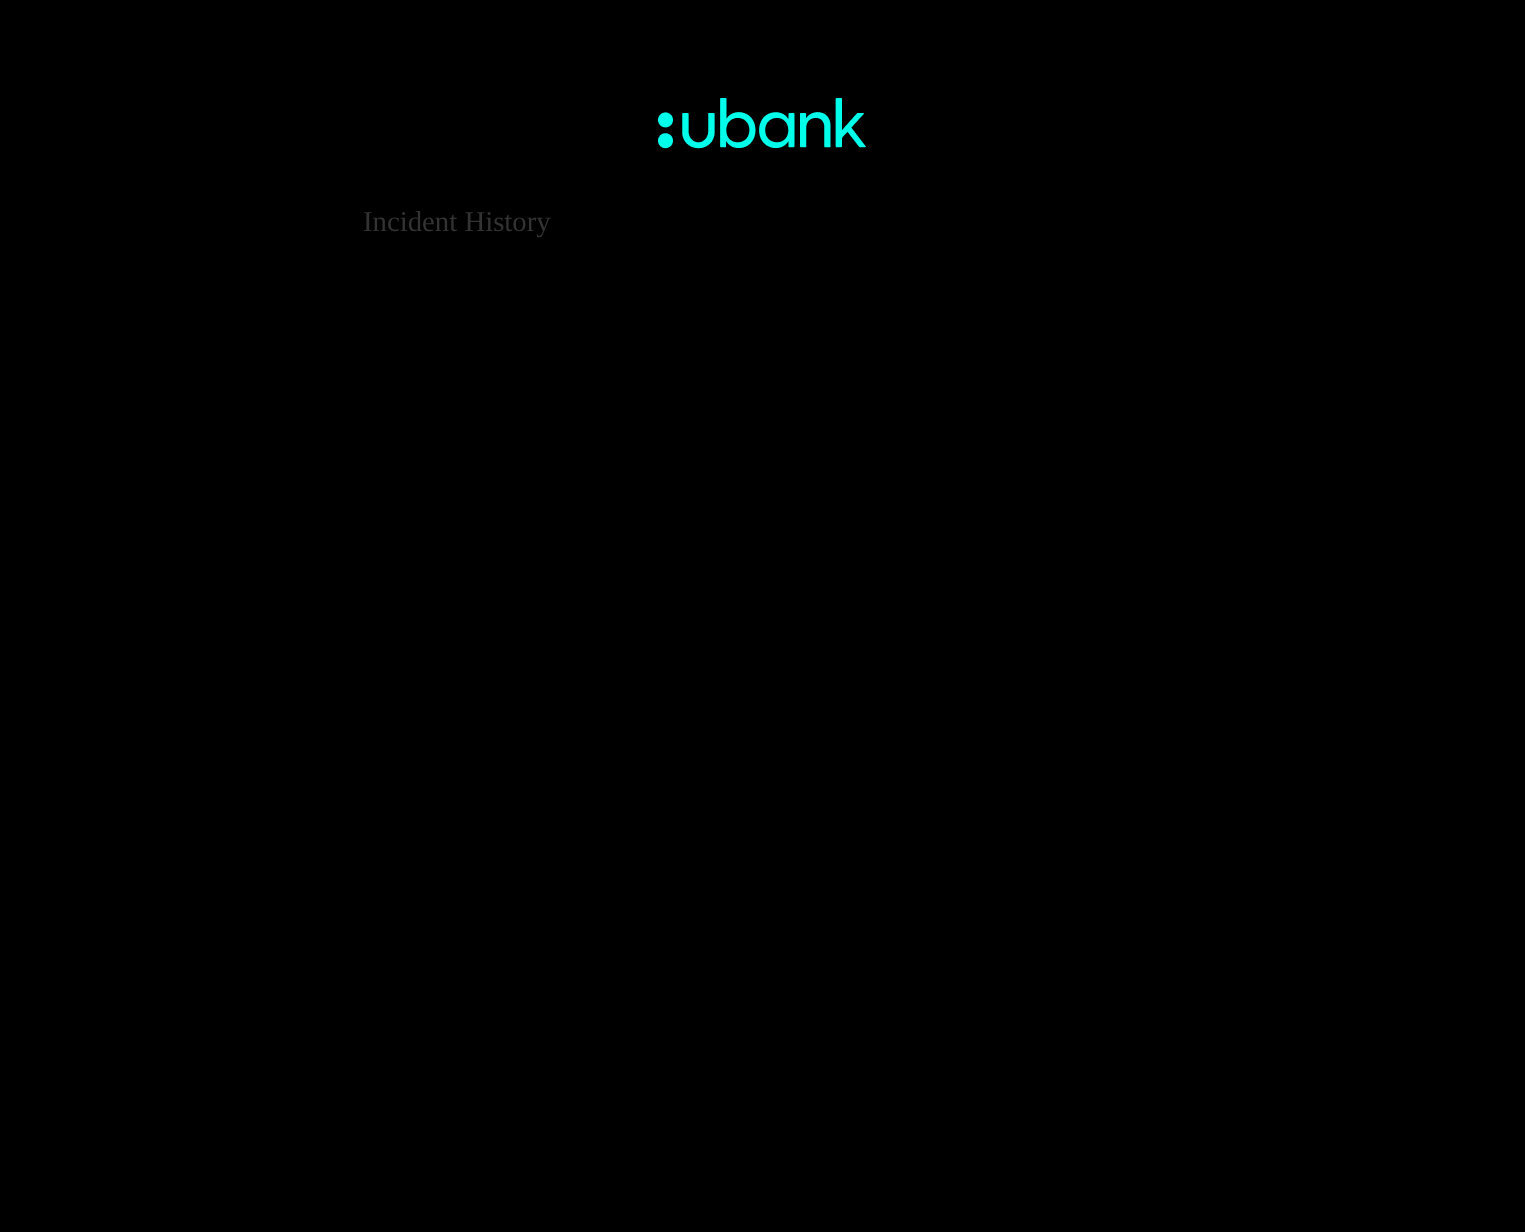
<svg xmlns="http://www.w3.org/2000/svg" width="1525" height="1232">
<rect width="100%" height="100%" fill="#000"/>
<image x="658" y="98" width="208" height="51" href="media/1.png"/>
<text x="363" y="231" style="font-family:Liberation Serif;font-size:28.75px;fill:#333">Incident History</text>
</svg>
